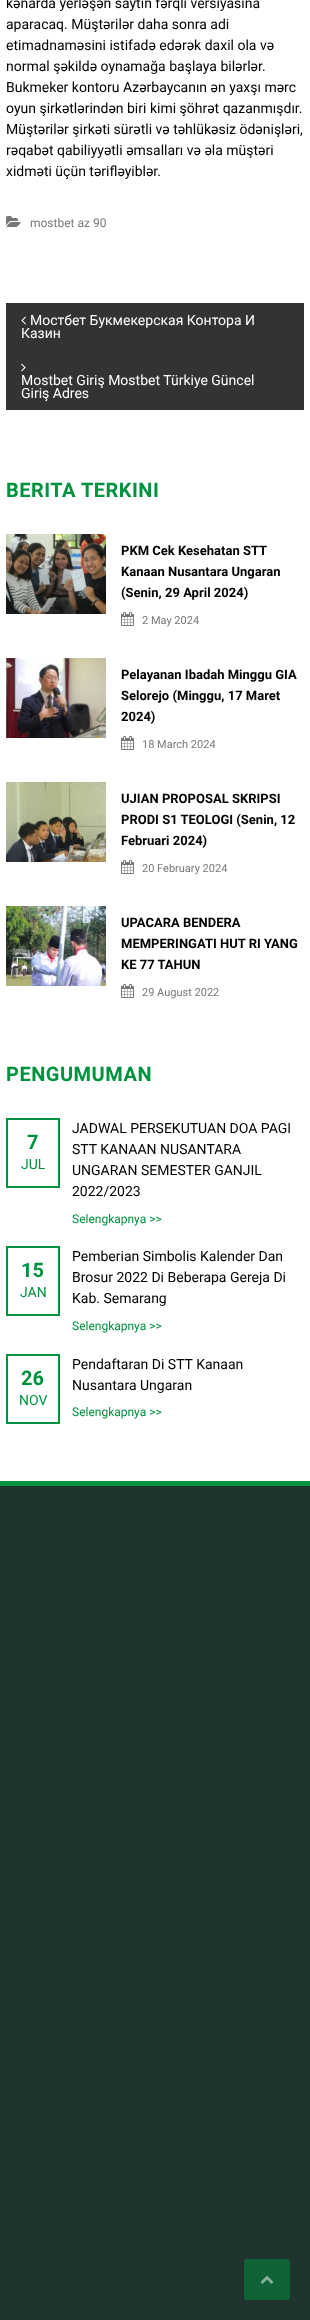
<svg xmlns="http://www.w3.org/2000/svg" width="310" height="2320">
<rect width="100%" height="100%" fill="#fff"/>
<text x="6" y="8" style="font-family:Roboto;font-size:14px;fill:#000">kənarda yerləşən saytın fərqli versiyasına</text>
<text x="6" y="29" style="font-family:Roboto;font-size:14px;fill:#000">aparacaq. Müştərilər daha sonra adi</text>
<text x="6" y="50" style="font-family:Roboto;font-size:14px;fill:#000">etimadnaməsini istifadə edərək daxil ola və</text>
<text x="6" y="71" style="font-family:Roboto;font-size:14px;fill:#000">normal şəkildə oynamağa başlaya bilərlər.</text>
<text x="6" y="92" style="font-family:Roboto;font-size:14px;fill:#000">Bukmeker kontoru Azərbaycanın ən yaxşı mərc</text>
<text x="6" y="113" style="font-family:Roboto;font-size:14px;fill:#000">oyun şirkətlərindən biri kimi şöhrət qazanmışdır.</text>
<text x="6" y="134" style="font-family:Roboto;font-size:14px;fill:#000">Müştərilər şirkəti sürətli və təhlükəsiz ödənişləri,</text>
<text x="6" y="155" style="font-family:Roboto;font-size:14px;fill:#000">rəqabət qabiliyyətli əmsalları və əla müştəri</text>
<text x="6" y="176" style="font-family:Roboto;font-size:14px;fill:#000">xidməti üçün tərifləyiblər.</text>
<image x="6" y="216" width="15" height="11" href="media/1.png"/>
<text x="30" y="227" style="font-family:Roboto;font-size:12px;fill:#787878">mostbet az 90</text>
<rect x="6" y="303" width="298" height="107" fill="#333"/>
<image x="21" y="316" width="5" height="9" href="media/2.png"/>
<text x="30" y="325" style="font-family:Roboto;font-size:14px;fill:#fff">Мостбет Букмекерская Контора И</text>
<text x="21" y="338" style="font-family:Roboto;font-size:14px;fill:#fff">Казин</text>
<image x="21" y="363" width="5" height="9" href="media/3.png"/>
<text x="21" y="385" style="font-family:Roboto;font-size:14px;fill:#fff">Mostbet Giriş Mostbet Türkiye Güncel</text>
<text x="21" y="398" style="font-family:Roboto;font-size:14px;fill:#fff">Giriş Adres</text>
<text x="6" y="497" style="font-family:Roboto;font-size:20px;font-weight:bold;letter-spacing:0.5px;fill:#00923f">BERITA TERKINI</text>
<image x="6" y="534" width="100" height="80" href="media/4.png"/>
<text x="121" y="555" style="font-family:Roboto;font-size:13px;font-weight:bold;fill:#000">PKM Cek Kesehatan STT</text>
<text x="121" y="576" style="font-family:Roboto;font-size:13px;font-weight:bold;fill:#000">Kanaan Nusantara Ungaran</text>
<text x="121" y="597" style="font-family:Roboto;font-size:13px;font-weight:bold;fill:#000">(Senin, 29 April 2024)</text>
<image x="121" y="612" width="13" height="14" href="media/5.png"/>
<text x="142" y="624" style="font-family:Roboto;font-size:11px;fill:#787878">2 May 2024</text>
<image x="6" y="658" width="100" height="80" href="media/6.png"/>
<text x="121" y="679" style="font-family:Roboto;font-size:13px;font-weight:bold;fill:#000">Pelayanan Ibadah Minggu GIA</text>
<text x="121" y="700" style="font-family:Roboto;font-size:13px;font-weight:bold;fill:#000">Selorejo (Minggu, 17 Maret</text>
<text x="121" y="721" style="font-family:Roboto;font-size:13px;font-weight:bold;fill:#000">2024)</text>
<image x="121" y="736" width="13" height="14" href="media/5.png"/>
<text x="142" y="748" style="font-family:Roboto;font-size:11px;fill:#787878">18 March 2024</text>
<image x="6" y="782" width="100" height="80" href="media/7.png"/>
<text x="121" y="803" style="font-family:Roboto;font-size:13px;font-weight:bold;fill:#000">UJIAN PROPOSAL SKRIPSI</text>
<text x="121" y="824" style="font-family:Roboto;font-size:13px;font-weight:bold;fill:#000">PRODI S1 TEOLOGI (Senin, 12</text>
<text x="121" y="845" style="font-family:Roboto;font-size:13px;font-weight:bold;fill:#000">Februari 2024)</text>
<image x="121" y="860" width="13" height="14" href="media/5.png"/>
<text x="142" y="872" style="font-family:Roboto;font-size:11px;fill:#787878">20 February 2024</text>
<image x="6" y="906" width="100" height="80" href="media/8.png"/>
<text x="121" y="927" style="font-family:Roboto;font-size:13px;font-weight:bold;fill:#000">UPACARA BENDERA</text>
<text x="121" y="948" style="font-family:Roboto;font-size:13px;font-weight:bold;fill:#000">MEMPERINGATI HUT RI YANG</text>
<text x="121" y="969" style="font-family:Roboto;font-size:13px;font-weight:bold;fill:#000">KE 77 TAHUN</text>
<image x="121" y="984" width="13" height="14" href="media/5.png"/>
<text x="142" y="996" style="font-family:Roboto;font-size:11px;fill:#787878">29 August 2022</text>
<text x="6" y="1081" style="font-family:Roboto;font-size:20px;font-weight:bold;letter-spacing:0.5px;fill:#00923f">PENGUMUMAN</text>
<rect x="7" y="1119" width="52" height="68" fill="none" stroke="#00923f" stroke-width="2"/>
<text x="27" y="1149" style="font-family:Roboto;font-size:20px;font-weight:bold;fill:#00923f">7</text>
<text x="21" y="1169" style="font-family:Roboto;font-size:14px;fill:#00923f">JUL</text>
<text x="72" y="1133" style="font-family:Roboto;font-size:14px;fill:#000">JADWAL PERSEKUTUAN DOA PAGI</text>
<text x="72" y="1154" style="font-family:Roboto;font-size:14px;fill:#000">STT KANAAN NUSANTARA</text>
<text x="72" y="1175" style="font-family:Roboto;font-size:14px;fill:#000">UNGARAN SEMESTER GANJIL</text>
<text x="72" y="1196" style="font-family:Roboto;font-size:14px;fill:#000">2022/2023</text>
<text x="72" y="1223" style="font-family:Roboto;font-size:12px;fill:#00923f">Selengkapnya &gt;&gt;</text>
<rect x="7" y="1247" width="52" height="68" fill="none" stroke="#00923f" stroke-width="2"/>
<text x="21" y="1277" style="font-family:Roboto;font-size:20px;font-weight:bold;fill:#00923f">15</text>
<text x="20" y="1297" style="font-family:Roboto;font-size:14px;fill:#00923f">JAN</text>
<text x="72" y="1261" style="font-family:Roboto;font-size:14px;fill:#000">Pemberian Simbolis Kalender Dan</text>
<text x="72" y="1282" style="font-family:Roboto;font-size:14px;fill:#000">Brosur 2022 Di Beberapa Gereja Di</text>
<text x="72" y="1303" style="font-family:Roboto;font-size:14px;fill:#000">Kab. Semarang</text>
<text x="72" y="1330" style="font-family:Roboto;font-size:12px;fill:#00923f">Selengkapnya &gt;&gt;</text>
<rect x="7" y="1355" width="52" height="68" fill="none" stroke="#00923f" stroke-width="2"/>
<text x="21" y="1385" style="font-family:Roboto;font-size:20px;font-weight:bold;fill:#00923f">26</text>
<text x="19" y="1405" style="font-family:Roboto;font-size:14px;fill:#00923f">NOV</text>
<text x="72" y="1369" style="font-family:Roboto;font-size:14px;fill:#000">Pendaftaran Di STT Kanaan</text>
<text x="72" y="1390" style="font-family:Roboto;font-size:14px;fill:#000">Nusantara Ungaran</text>
<text x="72" y="1416" style="font-family:Roboto;font-size:12px;fill:#00923f">Selengkapnya &gt;&gt;</text>
<rect y="1486" width="310" height="834" fill="#20342f"/>
<rect y="1481" width="310" height="5" fill="#00923f"/>
<rect x="244" y="2259" width="46" height="41" rx="3" fill="#106337"/>
<image x="260" y="2275" width="14" height="9" href="media/9.png"/>
</svg>
